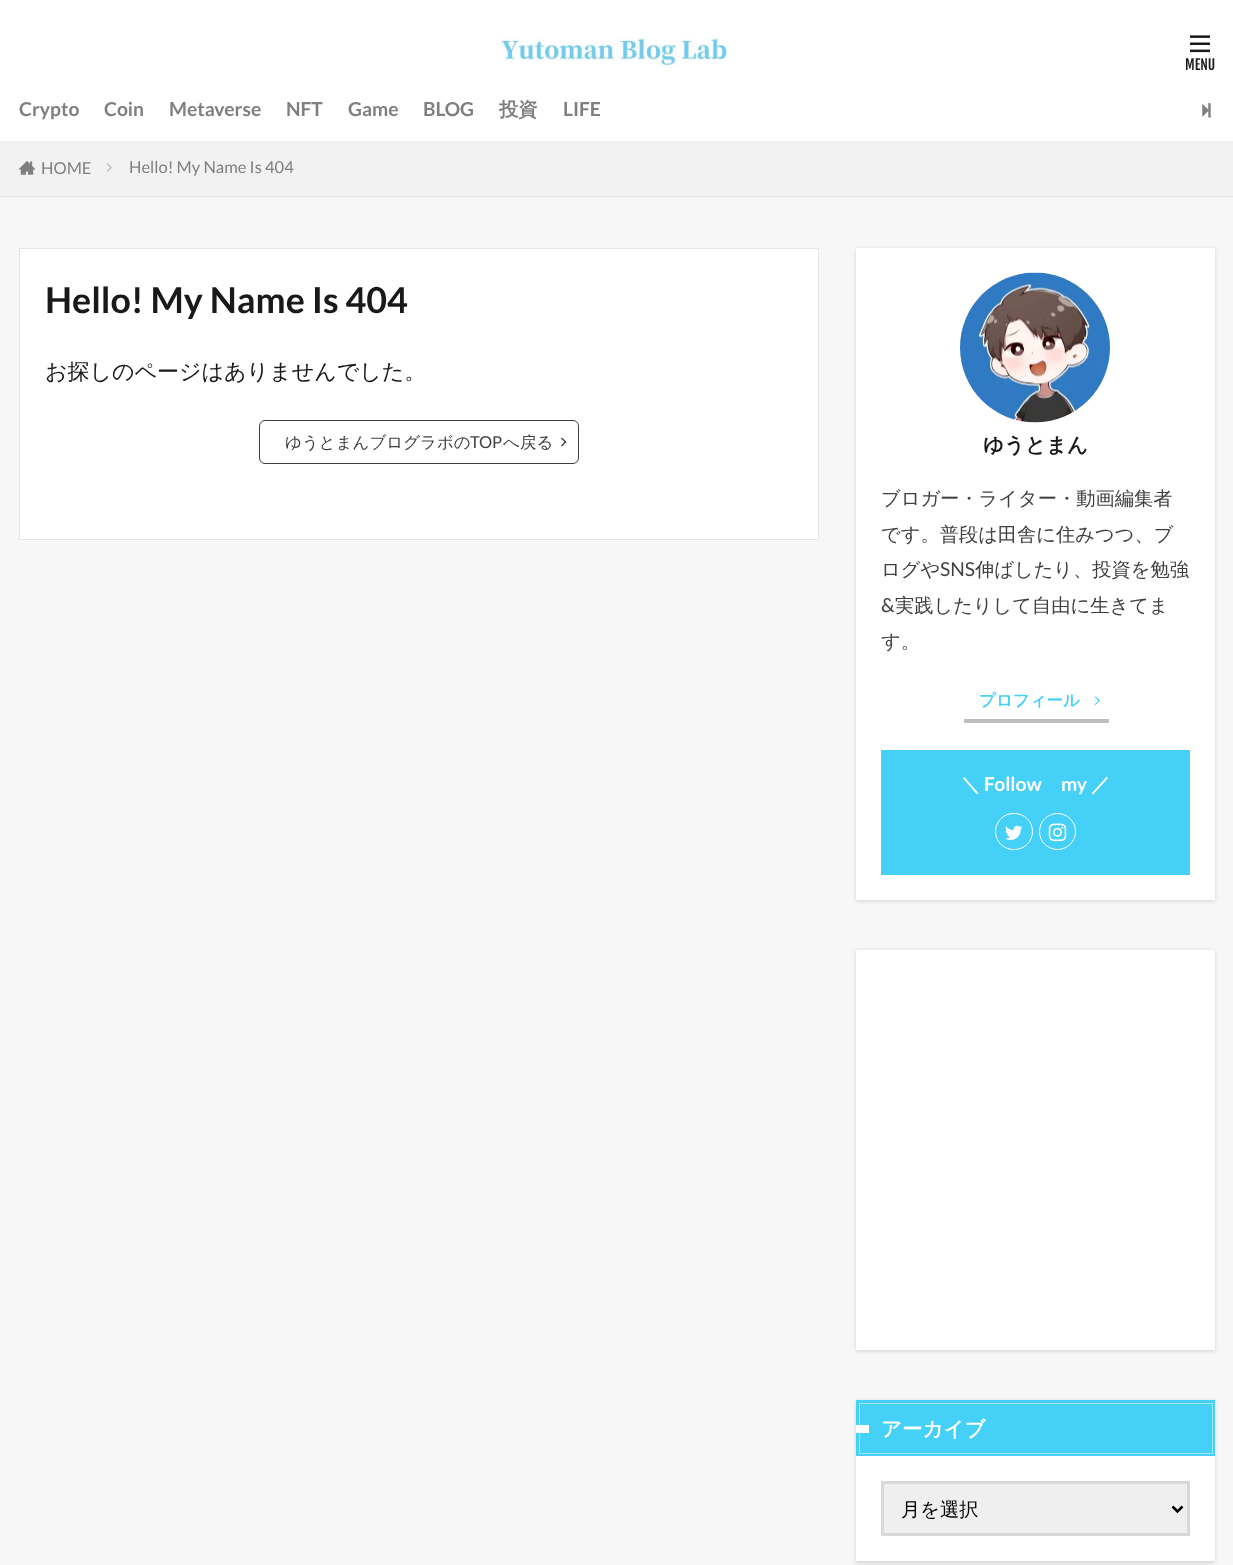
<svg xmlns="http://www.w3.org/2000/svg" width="1233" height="1565">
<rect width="100%" height="100%" fill="#f7f7f7"/>
<rect width="1233" height="141" fill="#fff"/>
<image x="501" y="37" width="229" height="31" href="media/1.png"/>
<image x="1190" y="35" width="20" height="18" href="media/2.png"/>
<text x="1185" y="70" style="font-family:Fjalla One;font-size:14px;fill:#191919">MENU</text>
<text x="19" y="116" style="font-family:Lato;font-size:19.25px;font-weight:bold;fill:#7f7f7f">Crypto</text>
<text x="104" y="116" style="font-family:Lato;font-size:19.25px;font-weight:bold;fill:#7f7f7f">Coin</text>
<text x="169" y="116" style="font-family:Lato;font-size:19.25px;font-weight:bold;fill:#7f7f7f">Metaverse</text>
<text x="286" y="116" style="font-family:Lato;font-size:19.25px;font-weight:bold;fill:#7f7f7f">NFT</text>
<text x="348" y="116" style="font-family:Lato;font-size:19.25px;font-weight:bold;fill:#7f7f7f">Game</text>
<text x="423" y="116" style="font-family:Lato;font-size:19.25px;font-weight:bold;fill:#7f7f7f">BLOG</text>
<text x="499" y="116" style="font-family:WenQuanYi Zen Hei;font-size:19.25px;font-weight:bold;fill:#7f7f7f">投資</text>
<text x="563" y="116" style="font-family:Lato;font-size:19.25px;font-weight:bold;fill:#7f7f7f">LIFE</text>
<image x="1202" y="103" width="9" height="15" href="media/3.png"/>
<rect y="141" width="1233" height="57" fill="#f2f2f2"/>
<rect y="196" width="1233" height="1" fill="#e6e6e6"/>
<image x="18" y="161" width="18" height="14" href="media/4.png"/>
<text x="41" y="174" style="font-family:Lato;font-size:16.5px;fill:#7f7f7f">HOME</text>
<path d="M107.5 163l4.5 4.5l-1 1l-4.5-4.5z" fill="#bfbfbf"/>
<path d="M111 166.5l1 1l-4.5 4.5l-1-1z" fill="#bfbfbf"/>
<text x="129" y="173" style="font-family:Lato;font-size:16.5px;fill:#7f7f7f">Hello! My Name Is 404</text>
<rect x="19.5" y="248.5" width="799" height="291" fill="#fff" stroke="#e6e6e6"/>
<text x="45" y="313" style="font-family:Lato;font-size:35.75px;font-weight:bold;fill:#191919">Hello! My Name Is 404</text>
<text x="45" y="379" style="font-family:WenQuanYi Zen Hei;font-size:22px;font-weight:500;fill:#191919">お探しのページはありませんでした。</text>
<rect x="259.5" y="420.5" width="319" height="43" rx="5.5" fill="none" stroke="#3f3f3f"/>
<text x="285" y="448" style="font-family:WenQuanYi Zen Hei;font-size:16.5px;font-weight:500;fill:#3f3f3f">ゆうとまんブログラボの</text>
<text x="470" y="448" style="font-family:Lato;font-size:16.5px;fill:#3f3f3f">TOP</text>
<text x="503" y="448" style="font-family:WenQuanYi Zen Hei;font-size:16.5px;font-weight:500;fill:#3f3f3f">へ戻る</text>
<path d="M562 437.5l4.5 4.5l-1 1l-4.5-4.5z" fill="#3f3f3f"/>
<path d="M565.5 441l1 1l-4.5 4.5l-1-1z" fill="#3f3f3f"/>
<rect x="856" y="249" width="359" height="652" fill="#00000026" filter="blur(2px)"/>
<rect x="856" y="248" width="359" height="652" fill="#fff"/>
<image x="960" y="272" width="150" height="151" href="media/5.png"/>
<text x="983" y="452" style="font-family:WenQuanYi Zen Hei;font-size:20.5px;font-weight:bold;fill:#191919">ゆうとまん</text>
<text x="881" y="505" style="font-family:WenQuanYi Zen Hei;font-size:19.25px;font-weight:500;fill:#3f3f3f">ブロガー・ライター・動画編集者</text>
<text x="881" y="541" style="font-family:WenQuanYi Zen Hei;font-size:19.25px;font-weight:500;fill:#3f3f3f">です。普段は田舎に住みつつ、ブ</text>
<text x="881" y="576" style="font-family:WenQuanYi Zen Hei;font-size:19.25px;font-weight:500;fill:#3f3f3f">ログや</text>
<text x="940" y="576" style="font-family:Lato;font-size:19.25px;fill:#3f3f3f">SNS</text>
<text x="975" y="576" style="font-family:WenQuanYi Zen Hei;font-size:19.25px;font-weight:500;fill:#3f3f3f">伸ばしたり、投資を勉強</text>
<text x="881" y="612" style="font-family:Lato;font-size:19.25px;fill:#3f3f3f">&amp;</text>
<text x="895" y="612" style="font-family:WenQuanYi Zen Hei;font-size:19.25px;font-weight:500;fill:#3f3f3f">実践したりして自由に生きてま</text>
<text x="881" y="648" style="font-family:WenQuanYi Zen Hei;font-size:19.25px;font-weight:500;fill:#3f3f3f">す。</text>
<rect x="964" y="719" width="145" height="4" fill="#bfbfbf"/>
<text x="979" y="706" style="font-family:WenQuanYi Zen Hei;font-size:16.5px;font-weight:bold;fill:#45d0f7">プロフィール</text>
<path d="M1095.5 696.5l4.5 4l-1 1l-4.5-4.5z" fill="#45d0f7"/>
<path d="M1099 700l1 .5l-4.5 4.5l-1-.5z" fill="#45d0f7"/>
<rect x="881" y="750" width="309" height="125" fill="#45d0f7"/>
<text x="961" y="791" style="font-family:WenQuanYi Zen Hei;font-size:19.25px;font-weight:bold;fill:#fff">＼</text>
<text x="984" y="791" style="font-family:Lato;font-size:19.25px;font-weight:bold;fill:#fff">Follow</text>
<text x="1061" y="791" style="font-family:Lato;font-size:19.25px;font-weight:bold;fill:#fff">my</text>
<text x="1091" y="791" style="font-family:WenQuanYi Zen Hei;font-size:19.25px;font-weight:bold;fill:#fff">／</text>
<rect x="995.5" y="813.5" width="37" height="36" rx="18" fill="none" stroke="#fff"/>
<image x="1005" y="825" width="18" height="15" href="media/6.png"/>
<circle cx="1057.5" cy="831.5" r="18" fill="none" stroke="#fff"/>
<image x="1048" y="823" width="19" height="19" href="media/7.png"/>
<rect x="856" y="951" width="359" height="400" fill="#00000026" filter="blur(2px)"/>
<rect x="856" y="950" width="359" height="400" fill="#fff"/>
<rect x="856" y="1401" width="359" height="162" fill="#00000026" filter="blur(2px)"/>
<rect x="856" y="1456" width="359" height="105" fill="#fff"/>
<rect x="856" y="1400" width="359" height="56" fill="#45d0f7"/>
<rect x="859.5" y="1403.5" width="353" height="50" fill="none" stroke="#a2e8fb"/>
<rect x="856" y="1425" width="13" height="8" fill="#fff"/>
<text x="881" y="1436" style="font-family:WenQuanYi Zen Hei;font-size:20.5px;font-weight:bold;fill:#fff">アーカイブ</text>
<rect x="882.5" y="1482.5" width="306" height="52" fill="#efefef" stroke="#d8d8d8" stroke-width="3"/>
<path d="M1172.5 1506.5l5 5l5-5" fill="none" stroke="#000" stroke-width="2.5"/>
<text x="901" y="1516" style="font-family:WenQuanYi Zen Hei;font-size:19.25px;font-weight:500;fill:#000">月を選択</text>
</svg>
